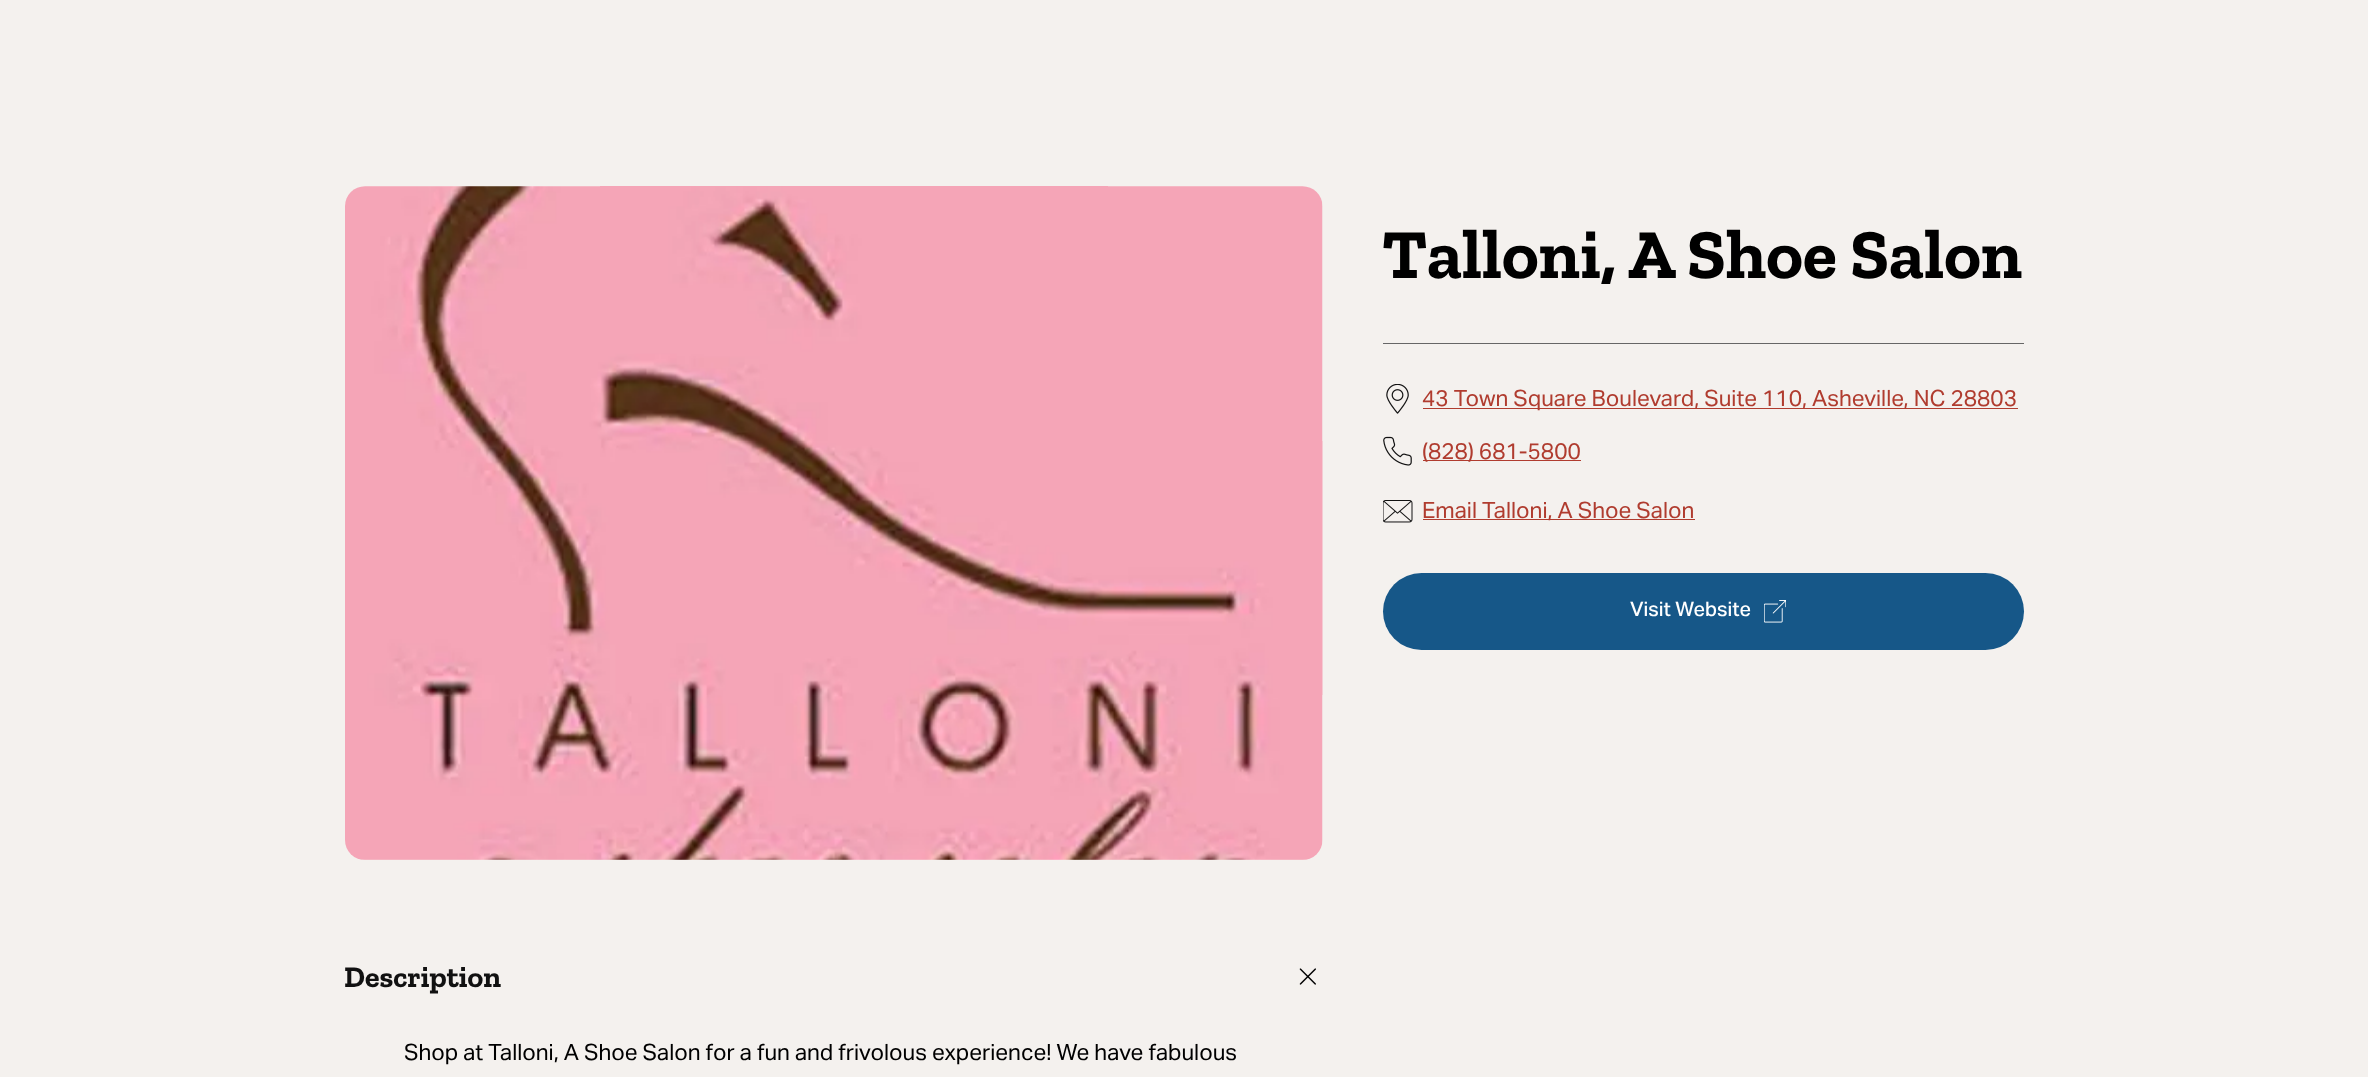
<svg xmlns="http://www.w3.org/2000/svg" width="2368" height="1077">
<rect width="100%" height="100%" fill="#f4f1ee"/>
<image x="345" y="186" width="978" height="674" href="media/1.png"/>
<rect x="1383" y="343" width="641" height="1" fill="#666"/>
<text x="1382" y="278" style="font-family:Zilla Slab;font-size:70px;font-weight:bold;fill:#000">Talloni, A Shoe Salon</text>
<image x="1386" y="384" width="23" height="30" href="media/2.png"/>
<rect x="1423" y="408" width="595" height="1" fill="#b03c2f"/>
<text x="1422" y="406" style="font-family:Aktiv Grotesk;font-size:22.5px;fill:#b03c2f">43 Town Square Boulevard, Suite 110, Asheville, NC 28803</text>
<image x="1383" y="436" width="29" height="30" href="media/3.png"/>
<rect x="1423" y="460" width="158" height="1" fill="#b03c2f"/>
<text x="1422" y="459" style="font-family:Aktiv Grotesk;font-size:22.5px;fill:#b03c2f">(828) 681-5800</text>
<image x="1383" y="500" width="30" height="23" href="media/4.png"/>
<rect x="1423" y="519" width="272" height="1" fill="#b03c2f"/>
<text x="1422" y="518" style="font-family:Aktiv Grotesk;font-size:22.5px;fill:#b03c2f">Email Talloni, A Shoe Salon</text>
<rect x="1383" y="573" width="641" height="77" rx="38.5" fill="#165788"/>
<text x="1630" y="616" style="font-family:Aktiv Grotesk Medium;font-size:20px;font-weight:500;fill:#fff">Visit Website</text>
<image x="1764" y="600" width="22" height="23" href="media/5.png"/>
<text x="344" y="987" style="font-family:Zilla Slab;font-size:30px;font-weight:bold;fill:#111">Description</text>
<image x="1299" y="968" width="17" height="17" href="media/6.png"/>
<text x="404" y="1060" style="font-family:Aktiv Grotesk;font-size:22.5px;fill:#000">Shop at Talloni, A Shoe Salon for a fun and frivolous experience! We have fabulous</text>
</svg>
